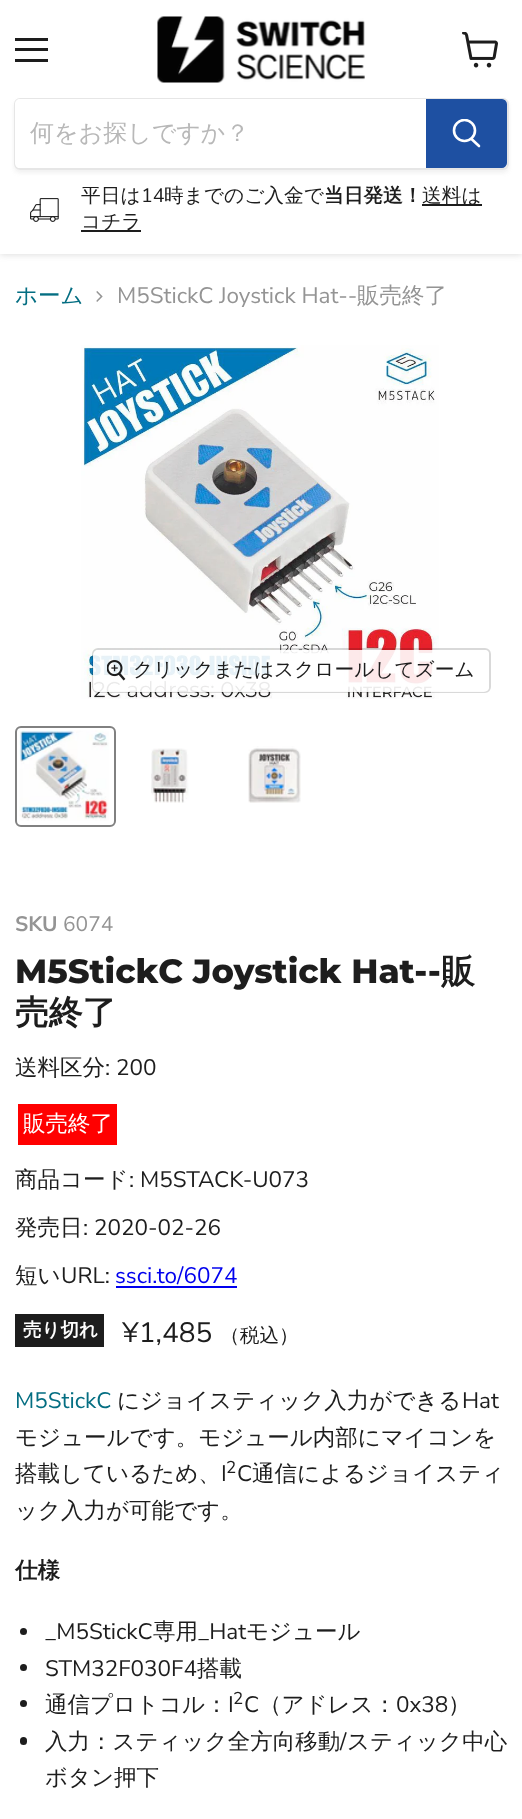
<svg xmlns="http://www.w3.org/2000/svg" width="522" height="1819">
<defs>
<clipPath id="clip1"><path d="M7 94h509v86h-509zm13 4h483c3.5 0 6 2.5 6 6v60c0 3.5-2.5 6-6 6h-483c-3.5 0-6-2.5-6-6v-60c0-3.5 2.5-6 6-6z" clip-rule="evenodd"/></clipPath>
<clipPath id="clip2"><rect x="452" y="119" width="30" height="31"/></clipPath>
</defs>
<rect width="100%" height="100%" fill="#fff"/>
<rect y="2" width="522" height="253" fill="#80808040" filter="blur(3px)"/>
<rect width="522" height="254" fill="#fff"/>
<rect x="15" y="38" width="33" height="3" fill="#1d1d1d"/>
<rect x="15" y="48" width="33" height="3" fill="#1d1d1d"/>
<rect x="15" y="59" width="33" height="3" fill="#1d1d1d"/>
<image x="462" y="32" width="36" height="36" href="media/1.png"/>
<image x="157" y="16" width="208" height="67" href="media/2.png"/>
<g clip-path="url(#clip1)">
<rect x="14" y="101" width="495" height="72" rx="6" fill="#8080801c" filter="blur(2px)"/>
</g>
<rect x="15" y="99" width="493" height="70" rx="5" fill="none" stroke="#80808033" stroke-width="2"/>
<path d="M20 99h406v69h-406c-3 0-5-2-5-5v-59c0-3 2-5 5-5z" fill="#fff"/>
<text x="30" y="141" style="font-family:WenQuanYi Zen Hei;font-size:24px;font-weight:500;fill:#b8b8b8">何をお探しですか？</text>
<path d="M427 100h75c2 0 4 2 4 4v59c0 2-2 4-4 4h-75z" fill="#1e50a2" stroke="#1e50a2" stroke-width="2"/>
<path d="M479 146l-7.5-7" fill="none" stroke="#fff" stroke-width="2.6" stroke-linecap="round"/>
<g clip-path="url(#clip2)">
<circle cx="464.5" cy="130.5" r="10.5" fill="none" stroke="#fff" stroke-width="2.6"/>
</g>
<image x="30" y="198" width="29" height="24" href="media/3.png"/>
<text x="81" y="202" style="font-family:WenQuanYi Zen Hei;font-size:19.7px;font-weight:500;fill:#1d1d1d">平日は</text>
<text x="141" y="202" style="font-family:Nunito Sans;font-size:19.7px;fill:#1d1d1d">14</text>
<text x="164" y="202" style="font-family:WenQuanYi Zen Hei;font-size:19.7px;font-weight:500;fill:#1d1d1d">時までのご入金で</text>
<text x="324" y="202" style="font-family:WenQuanYi Zen Hei;font-size:19.7px;font-weight:bold;fill:#1d1d1d">当日発送！</text>
<rect x="422" y="204" width="60" height="2" fill="#1d1d1d"/>
<text x="422" y="202" style="font-family:WenQuanYi Zen Hei;font-size:19.7px;font-weight:500;fill:#1d1d1d">送料は</text>
<rect x="81" y="230" width="60" height="2" fill="#1d1d1d"/>
<text x="81" y="228" style="font-family:WenQuanYi Zen Hei;font-size:19.7px;font-weight:500;fill:#1d1d1d">コチラ</text>
<text x="15" y="303" style="font-family:WenQuanYi Zen Hei;font-size:22.5px;font-weight:500;fill:#046e82">ホーム</text>
<image x="96" y="291" width="7" height="11" href="media/4.png"/>
<text x="117" y="303" style="font-family:Nunito Sans;font-size:22.5px;fill:#949494">M5StickC Joystick Hat--</text>
<text x="357" y="303" style="font-family:WenQuanYi Zen Hei;font-size:22.5px;font-weight:500;fill:#949494">販売終了</text>
<image x="81" y="345" width="358" height="354" href="media/5.png"/>
<rect x="93" y="649" width="397" height="43" rx="5" fill="none" stroke="#00000026" stroke-width="2"/>
<rect x="93" y="650" width="396" height="42" rx="5" fill="#ffffffe6"/>
<image x="107" y="660" width="19" height="21" href="media/6.png"/>
<text x="133" y="676" style="font-family:WenQuanYi Zen Hei;font-size:19.7px;font-weight:500;fill:#1d1d1d">クリックまたはスクロールしてズーム</text>
<rect x="16" y="727" width="99" height="99" rx="5" fill="none" stroke="#818181" stroke-width="2"/>
<image x="19" y="730" width="90" height="91" href="media/7.png"/>
<image x="151" y="748" width="38" height="55" href="media/8.png"/>
<image x="248" y="746" width="53" height="57" href="media/9.png"/>
<text x="15" y="931" style="font-family:Nunito Sans;font-size:21px;font-weight:bold;fill:#949494">SKU</text>
<text x="63" y="931" style="font-family:Nunito Sans;font-size:21px;fill:#949494">6074</text>
<text x="15" y="983" style="font-family:Montserrat;font-size:33.75px;font-weight:800;fill:#1d1d1d">M5StickC Joystick Hat--</text>
<text x="441" y="983" style="font-family:WenQuanYi Zen Hei;font-size:33.75px;font-weight:bold;fill:#1d1d1d">販</text>
<text x="15" y="1024" style="font-family:WenQuanYi Zen Hei;font-size:33.75px;font-weight:bold;fill:#1d1d1d">売終了</text>
<text x="15" y="1075" style="font-family:WenQuanYi Zen Hei;font-size:22.5px;font-weight:500;fill:#1d1d1d">送料区分</text>
<text x="105" y="1075" style="font-family:Nunito Sans;font-size:22.5px;fill:#1d1d1d">: 200</text>
<rect x="18" y="1104" width="99" height="41" fill="#f00"/>
<text x="23" y="1131" style="font-family:WenQuanYi Zen Hei;font-size:22.5px;font-weight:500;fill:#fff">販売終了</text>
<text x="15" y="1187" style="font-family:WenQuanYi Zen Hei;font-size:22.5px;font-weight:500;fill:#1d1d1d">商品コード</text>
<text x="129" y="1187" style="font-family:Nunito Sans;font-size:22.5px;fill:#1d1d1d">: M5STACK-U073</text>
<text x="15" y="1235" style="font-family:WenQuanYi Zen Hei;font-size:22.5px;font-weight:500;fill:#1d1d1d">発売日</text>
<text x="83" y="1235" style="font-family:Nunito Sans;font-size:22.5px;fill:#1d1d1d">: 2020-02-26</text>
<text x="15" y="1283" style="font-family:WenQuanYi Zen Hei;font-size:22.5px;font-weight:500;fill:#1d1d1d">短い</text>
<text x="61" y="1283" style="font-family:Nunito Sans;font-size:22.5px;fill:#1d1d1d">URL:</text>
<text x="115" y="1283" style="font-family:Nunito Sans;font-size:22.5px;fill:#00e">ssci.to/6074</text>
<rect x="116" y="1286" width="121" height="2" fill="#00e"/>
<rect x="15" y="1314" width="89" height="33" fill="#1d1d1d"/>
<text x="23" y="1336" style="font-family:WenQuanYi Zen Hei;font-size:18.5px;font-weight:bold;fill:#fff">売り切れ</text>
<text x="122" y="1342" style="font-family:Nunito Sans;font-size:28px;fill:#1d1d1d">¥1,485</text>
<text x="220" y="1342" style="font-family:WenQuanYi Zen Hei;font-size:19.7px;font-weight:500;fill:#1d1d1d">（税込）</text>
<text x="15" y="1408" style="font-family:Nunito Sans;font-size:22.5px;fill:#046e82">M5StickC</text>
<text x="117" y="1408" style="font-family:WenQuanYi Zen Hei;font-size:22.5px;font-weight:500;fill:#1d1d1d">にジョイスティック入力ができる</text>
<text x="462" y="1408" style="font-family:Nunito Sans;font-size:22.5px;fill:#1d1d1d">Hat</text>
<text x="15" y="1445" style="font-family:WenQuanYi Zen Hei;font-size:22.5px;font-weight:500;fill:#1d1d1d">モジュールです。モジュール内部にマイコンを</text>
<text x="15" y="1481" style="font-family:WenQuanYi Zen Hei;font-size:22.5px;font-weight:500;fill:#1d1d1d">搭載しているため、</text>
<text x="221" y="1481" style="font-family:Nunito Sans;font-size:22.5px;fill:#1d1d1d">I</text>
<text x="226" y="1473" style="font-family:Nunito Sans;font-size:17px;fill:#1d1d1d">2</text>
<text x="237" y="1481" style="font-family:Nunito Sans;font-size:22.5px;fill:#1d1d1d">C</text>
<text x="252" y="1481" style="font-family:WenQuanYi Zen Hei;font-size:22.5px;font-weight:500;fill:#1d1d1d">通信によるジョイスティ</text>
<text x="15" y="1518" style="font-family:WenQuanYi Zen Hei;font-size:22.5px;font-weight:500;fill:#1d1d1d">ック入力が可能です。</text>
<text x="15" y="1578" style="font-family:WenQuanYi Zen Hei;font-size:22.5px;font-weight:bold;fill:#1d1d1d">仕様</text>
<circle cx="23.5" cy="1631.5" r="3.5" fill="#1d1d1d"/>
<text x="45" y="1639" style="font-family:Nunito Sans;font-size:22.5px;fill:#1d1d1d">_M5StickC</text>
<text x="153" y="1639" style="font-family:WenQuanYi Zen Hei;font-size:22.5px;font-weight:500;fill:#1d1d1d">専用</text>
<text x="198" y="1639" style="font-family:Nunito Sans;font-size:22.5px;fill:#1d1d1d">_Hat</text>
<text x="246" y="1639" style="font-family:WenQuanYi Zen Hei;font-size:22.5px;font-weight:500;fill:#1d1d1d">モジュール</text>
<circle cx="23.5" cy="1667.5" r="3.5" fill="#1d1d1d"/>
<text x="45" y="1676" style="font-family:Nunito Sans;font-size:22.5px;fill:#1d1d1d">STM32F030F4</text>
<text x="197" y="1676" style="font-family:WenQuanYi Zen Hei;font-size:22.5px;font-weight:500;fill:#1d1d1d">搭載</text>
<circle cx="23.5" cy="1703.5" r="3.5" fill="#1d1d1d"/>
<text x="45" y="1712" style="font-family:WenQuanYi Zen Hei;font-size:22.5px;font-weight:500;fill:#1d1d1d">通信プロトコル：</text>
<text x="228" y="1712" style="font-family:Nunito Sans;font-size:22.5px;fill:#1d1d1d">I</text>
<text x="233" y="1704" style="font-family:Nunito Sans;font-size:17px;fill:#1d1d1d">2</text>
<text x="244" y="1712" style="font-family:Nunito Sans;font-size:22.5px;fill:#1d1d1d">C</text>
<text x="259" y="1712" style="font-family:WenQuanYi Zen Hei;font-size:22.5px;font-weight:500;fill:#1d1d1d">（アドレス：</text>
<text x="396" y="1712" style="font-family:Nunito Sans;font-size:22.5px;fill:#1d1d1d">0x38</text>
<text x="448" y="1712" style="font-family:WenQuanYi Zen Hei;font-size:22.5px;font-weight:500;fill:#1d1d1d">）</text>
<rect x="20" y="1737" width="7" height="8" rx="3.5" fill="#1d1d1d"/>
<text x="45" y="1749" style="font-family:WenQuanYi Zen Hei;font-size:22.5px;font-weight:500;fill:#1d1d1d">入力：スティック全方向移動</text>
<text x="340" y="1749" style="font-family:Nunito Sans;font-size:22.5px;fill:#1d1d1d">/</text>
<text x="347" y="1749" style="font-family:WenQuanYi Zen Hei;font-size:22.5px;font-weight:500;fill:#1d1d1d">スティック中心</text>
<text x="45" y="1785" style="font-family:WenQuanYi Zen Hei;font-size:22.5px;font-weight:500;fill:#1d1d1d">ボタン押下</text>
</svg>
